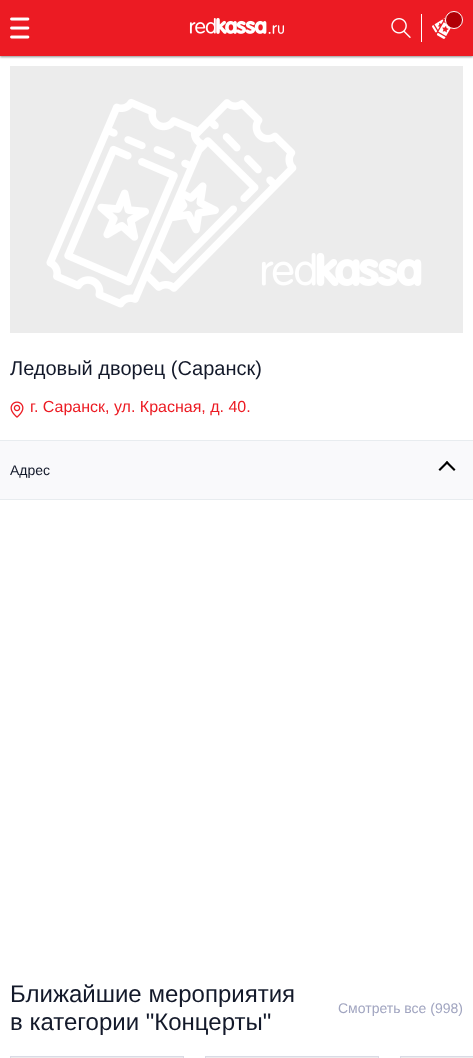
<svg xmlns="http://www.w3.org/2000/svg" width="473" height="1058">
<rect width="100%" height="100%" fill="#fff"/>
<rect y="1" width="473" height="56" fill="#1f1f1f80" filter="blur(1px)"/>
<rect width="473" height="56" fill="#ec1b23"/>
<image x="10" y="17" width="20" height="22" href="media/1.png"/>
<image x="189" y="18" width="95" height="16" href="media/2.png"/>
<image x="391" y="18" width="20" height="20" href="media/3.png"/>
<rect x="421" y="14" width="1" height="28" fill="#fff"/>
<image x="432" y="18" width="19" height="21" href="media/4.png"/>
<circle cx="454" cy="20" r="8.5" fill="#b00007" stroke="#fff"/>
<image x="10" y="66" width="453" height="267" href="media/5.png"/>
<text x="10" y="375" style="font-family:Liberation Sans;font-size:20px;fill:#13192a">Ледовый дворец (Саранск)</text>
<image x="10" y="401" width="14" height="17" href="media/6.png"/>
<text x="30" y="412" style="font-family:Liberation Sans;font-size:16px;fill:#ec1b23">г. Саранск, ул. Красная, д. 40.</text>
<rect y="441" width="473" height="58" fill="#f9f9fb"/>
<rect y="440" width="473" height="1" fill="#e8ecef"/>
<rect y="499" width="473" height="1" fill="#e8ecef"/>
<text x="10" y="475" style="font-family:Liberation Sans;font-size:14px;fill:#13192a">Адрес</text>
<path d="M447 461l8.5 8.5l-1.5 1.5l-8.5-8.5z" fill="#000"/>
<path d="M447 461l1.5 1.5l-8.5 8.5l-1.5-1.5z" fill="#000"/>
<text x="10" y="1002" style="font-family:Liberation Sans;font-size:24px;fill:#13192a">Ближайшие мероприятия</text>
<text x="10" y="1030" style="font-family:Liberation Sans;font-size:24px;fill:#13192a">в категории "Концерты"</text>
<text x="338" y="1013" style="font-family:Liberation Sans;font-size:14px;fill:#a1a5c0">Смотреть все (998)</text>
<rect x="10.5" y="1056.5" width="173" height="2" fill="none" stroke="#d9dbe6"/>
<rect x="11" y="1057" width="172" height="1" fill="#ececec"/>
<rect x="205.5" y="1056.5" width="173" height="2" fill="none" stroke="#d9dbe6"/>
<rect x="206" y="1057" width="172" height="1" fill="#ececec"/>
<rect x="400.5" y="1056.5" width="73" height="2" fill="none" stroke="#d9dbe6"/>
<rect x="401" y="1057" width="72" height="1" fill="#ececec"/>
</svg>
